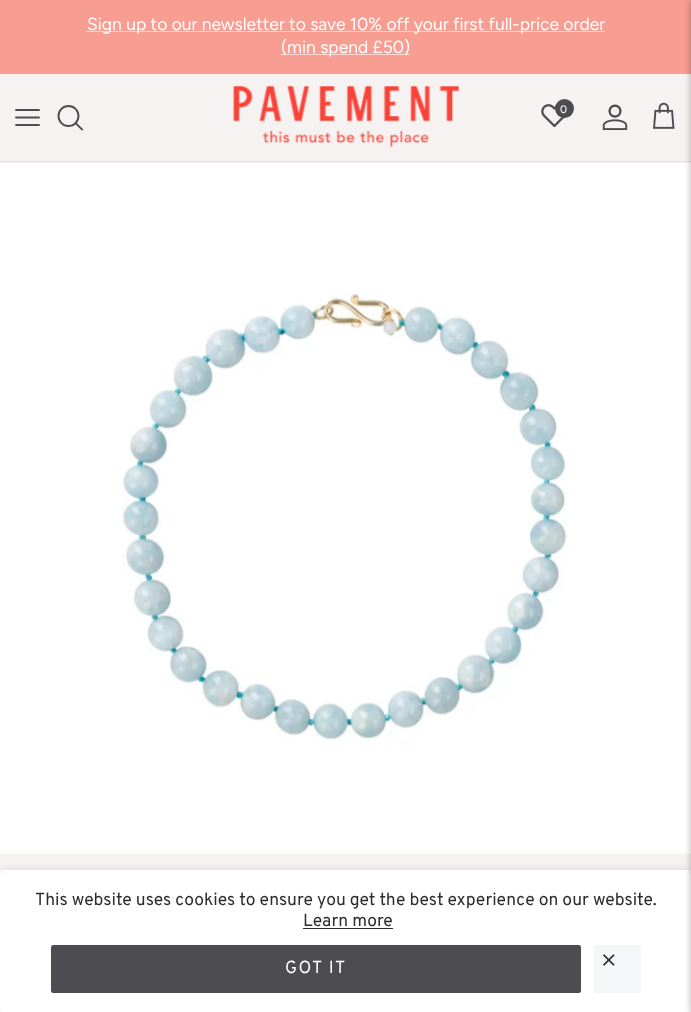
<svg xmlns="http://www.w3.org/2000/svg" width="691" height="1012">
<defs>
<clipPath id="clip1"><path d="M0 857h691v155h-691zm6 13h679c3.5 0 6 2.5 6 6v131c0 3.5-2.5 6-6 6h-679c-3.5 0-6-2.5-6-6v-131c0-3.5 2.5-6 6-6z" clip-rule="evenodd"/></clipPath>
</defs>
<rect width="100%" height="100%" fill="#f6f2f1"/>
<rect width="691" height="74" fill="#f79d92"/>
<rect x="86" y="31" width="519" height="1" fill="#fcd8d3"/>
<text x="87" y="30" style="font-family:Figtree;font-size:17.5px;fill:#fff">Sign up to our newsletter to save 10% off your first full-price order</text>
<rect x="281" y="54" width="129" height="1" fill="#fcd8d3"/>
<text x="281" y="53" style="font-family:Figtree;font-size:17.5px;fill:#fff">(min spend £50)</text>
<rect y="161" width="691" height="1" fill="#e9dddd"/>
<image x="0" y="163" width="691" height="691" href="media/5.png"/>
<rect y="870" width="691" height="142" fill="#fff"/>
<rect x="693" width="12" height="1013" fill="#00000080" filter="blur(4.5px)"/>
<path d="M16 117.5h23m-23-7.5h23m-23 15h23" fill="none" stroke="#4d4c50" stroke-width="1.9" stroke-linecap="round" stroke-linejoin="round"/>
<circle cx="68.5" cy="116" r="10" fill="none" stroke="#4d4c50" stroke-width="1.9"/>
<path d="M76 123.5l6 6" fill="none" stroke="#4d4c50" stroke-width="1.9" stroke-linecap="square"/>
<image x="233" y="86" width="226" height="61" href="media/1.png"/>
<image x="541" y="104" width="24" height="24" href="media/2.png"/>
<circle cx="564.5" cy="108.5" r="9.5" fill="#4d4c50"/>
<text x="560" y="113" style="font-family:Figtree;font-size:11px;font-weight:500;fill:#f6f2f1">0</text>
<image x="602" y="104" width="26" height="26" href="media/3.png"/>
<image x="653" y="102" width="22" height="27" href="media/4.png"/>
<g clip-path="url(#clip1)">
<rect y="870" width="691" height="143" rx="6" fill="#0000001f" filter="blur(4px)"/>
</g>
<text x="35" y="905" style="font-family:Overpass;font-size:17.5px;fill:#2d2d2d">This website uses cookies to ensure you get the best experience on our website.</text>
<text x="303" y="926" style="font-family:Overpass;font-size:17.5px;fill:#2d2d2d">Learn more</text>
<rect x="303" y="928" width="90" height="1" fill="#2d2d2d"/>
<rect x="51" y="945" width="530" height="48" rx="2.5" fill="#4d4c50"/>
<text x="285" y="973" style="font-family:Overpass;font-size:17.5px;letter-spacing:1.5px;fill:#fff">GOT IT</text>
<rect x="594" y="945" width="47" height="48" rx="2.5" fill="#f4f6f8"/>
<image x="603" y="954" width="12" height="12" href="media/6.png"/>
</svg>
